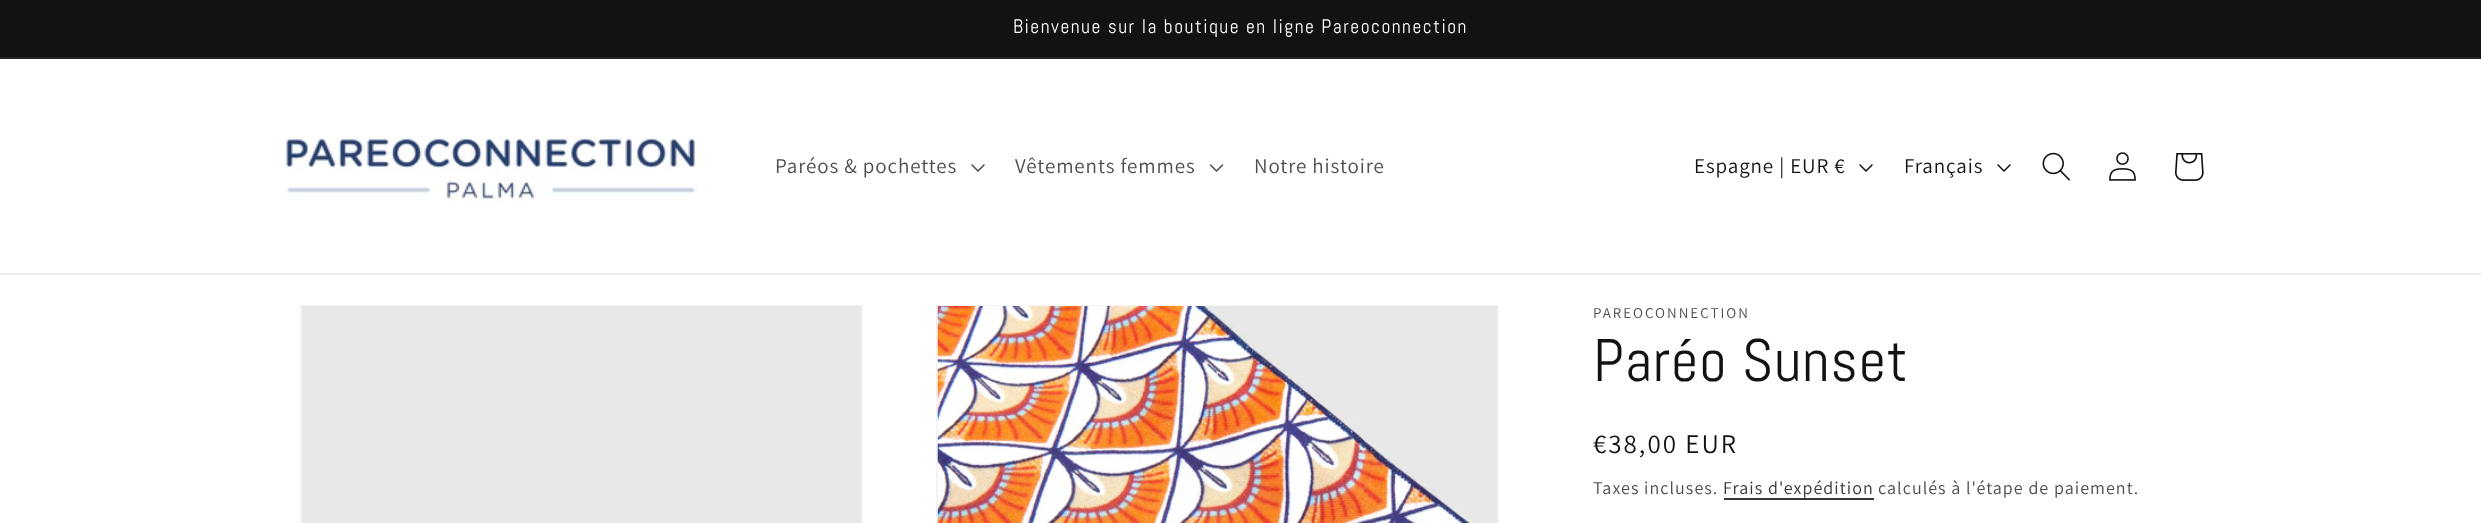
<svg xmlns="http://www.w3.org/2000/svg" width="2481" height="523">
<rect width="100%" height="100%" fill="#fff"/>
<rect width="2481" height="57" fill="#121212"/>
<rect y="57" width="2481" height="2" fill="#252525"/>
<text x="1013" y="33" style="font-family:Abel;font-size:19.5px;letter-spacing:1.5px;fill:#fff">Bienvenue sur la boutique en ligne Pareoconnection</text>
<rect y="273" width="2481" height="2" fill="#ececec"/>
<image x="284" y="136" width="414" height="66" href="media/1.png"/>
<text x="775" y="173" style="font-family:Assistant;font-size:21px;letter-spacing:0.9px;fill:#4d4d4d">Paréos &amp; pochettes</text>
<image x="971" y="164" width="14" height="8" href="media/2.png"/>
<text x="1015" y="173" style="font-family:Assistant;font-size:21px;letter-spacing:0.9px;fill:#4d4d4d">Vêtements femmes</text>
<image x="1209" y="164" width="15" height="8" href="media/3.png"/>
<text x="1254" y="173" style="font-family:Assistant;font-size:21px;letter-spacing:0.9px;fill:#4d4d4d">Notre histoire</text>
<text x="1694" y="173" style="font-family:Assistant;font-size:21px;letter-spacing:0.9px;fill:#121212">Espagne | EUR €</text>
<image x="1859" y="164" width="14" height="8" href="media/4.png"/>
<text x="1904" y="173" style="font-family:Assistant;font-size:21px;letter-spacing:0.9px;fill:#121212">Français</text>
<image x="1997" y="164" width="14" height="8" href="media/4.png"/>
<image x="2042" y="152" width="28" height="29" href="media/5.png"/>
<image x="2109" y="152" width="27" height="29" href="media/6.png"/>
<image x="2175" y="153" width="29" height="28" href="media/7.png"/>
<rect x="301" y="306" width="561" height="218" fill="none" stroke="#f3f3f3" stroke-width="2"/>
<rect x="302" y="306" width="559" height="217" fill="#e8e8e8"/>
<rect x="937" y="306" width="561" height="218" fill="none" stroke="#f3f3f3" stroke-width="2"/>
<image x="937" y="306" width="560" height="217" href="media/8.png"/>
<text x="1593" y="318" style="font-family:Assistant;font-size:15px;letter-spacing:2px;fill:#4d4d4d">PAREOCONNECTION</text>
<text x="1593" y="381" style="font-family:Abel;font-size:60px;letter-spacing:0.9px;fill:#121212">Paréo Sunset</text>
<text x="1593" y="453" style="font-family:Assistant;font-size:27px;letter-spacing:2px;fill:#121212">€38,00 EUR</text>
<text x="1593" y="494" style="font-family:Assistant;font-size:18px;letter-spacing:1.05px;fill:#4d4d4d">Taxes incluses.</text>
<text x="1723" y="494" style="font-family:Assistant;font-size:18px;letter-spacing:1.05px;fill:#363636">Frais d'expédition</text>
<rect x="1724" y="498" width="150" height="2" fill="#363636"/>
<text x="1878" y="494" style="font-family:Assistant;font-size:18px;letter-spacing:1.05px;fill:#4d4d4d">calculés à l'étape de paiement.</text>
</svg>
